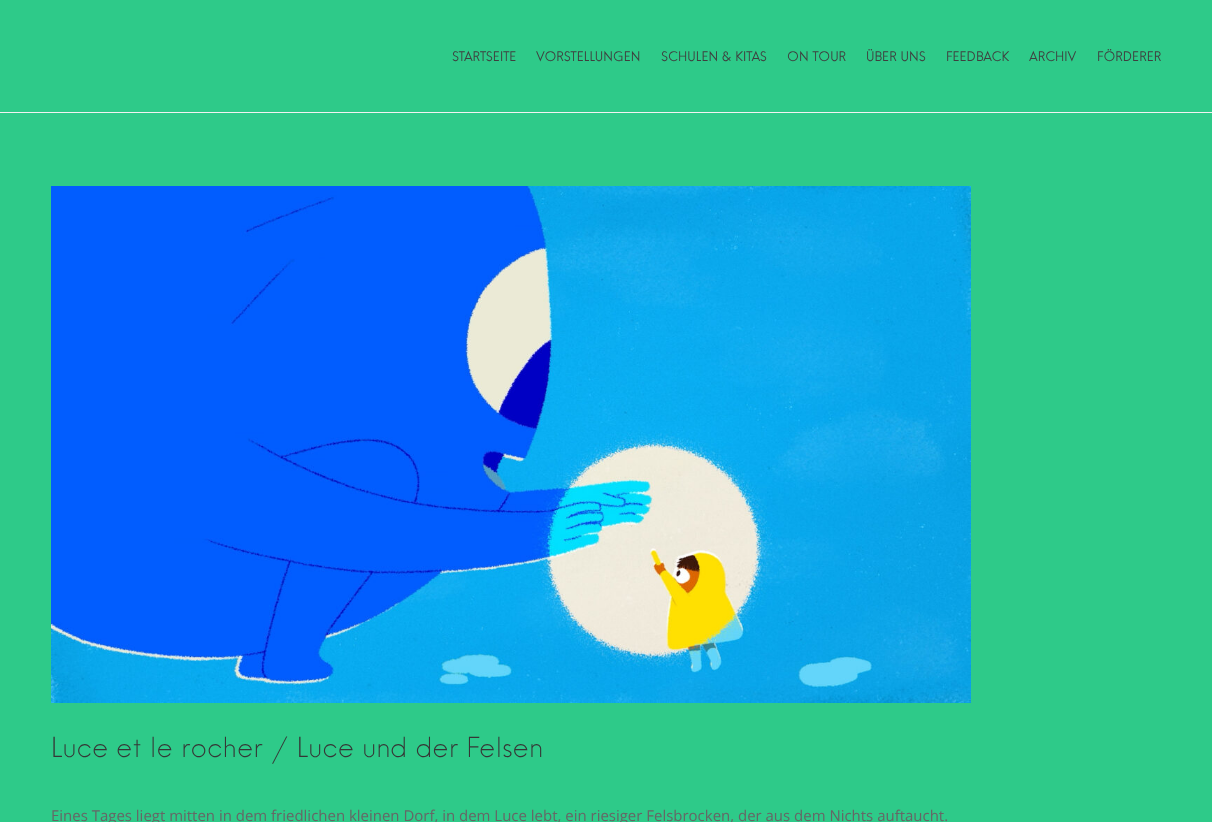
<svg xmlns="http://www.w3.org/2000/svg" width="1212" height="822">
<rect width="100%" height="100%" fill="#2eca89"/>
<rect y="112" width="1212" height="1" fill="#f2f2f2"/>
<text x="452" y="61" style="font-family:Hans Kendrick;font-size:13px;fill:#3f3f3f">STARTSEITE</text>
<text x="536" y="61" style="font-family:Hans Kendrick;font-size:13px;fill:#3f3f3f">VORSTELLUNGEN</text>
<text x="661" y="61" style="font-family:Hans Kendrick;font-size:13px;fill:#3f3f3f">SCHULEN &amp; KITAS</text>
<text x="787" y="61" style="font-family:Hans Kendrick;font-size:13px;fill:#3f3f3f">ON TOUR</text>
<text x="866" y="61" style="font-family:Hans Kendrick;font-size:13px;fill:#3f3f3f">ÜBER UNS</text>
<text x="946" y="61" style="font-family:Hans Kendrick;font-size:13px;fill:#3f3f3f">FEEDBACK</text>
<text x="1029" y="61" style="font-family:Hans Kendrick;font-size:13px;fill:#3f3f3f">ARCHIV</text>
<text x="1097" y="61" style="font-family:Hans Kendrick;font-size:13px;fill:#3f3f3f">FÖRDERER</text>
<image x="51" y="186" width="920" height="517" href="media/1.png"/>
<text x="51" y="757" style="font-family:Hans Kendrick;font-size:27px;font-weight:300;fill:#363636">Luce et le rocher / Luce und der Felsen</text>
<text x="51" y="821" style="font-family:Open Sans;font-size:14.98px;fill:#666">Eines Tages liegt mitten in dem friedlichen kleinen Dorf, in dem Luce lebt, ein riesiger Felsbrocken, der aus dem Nichts auftaucht.</text>
</svg>
